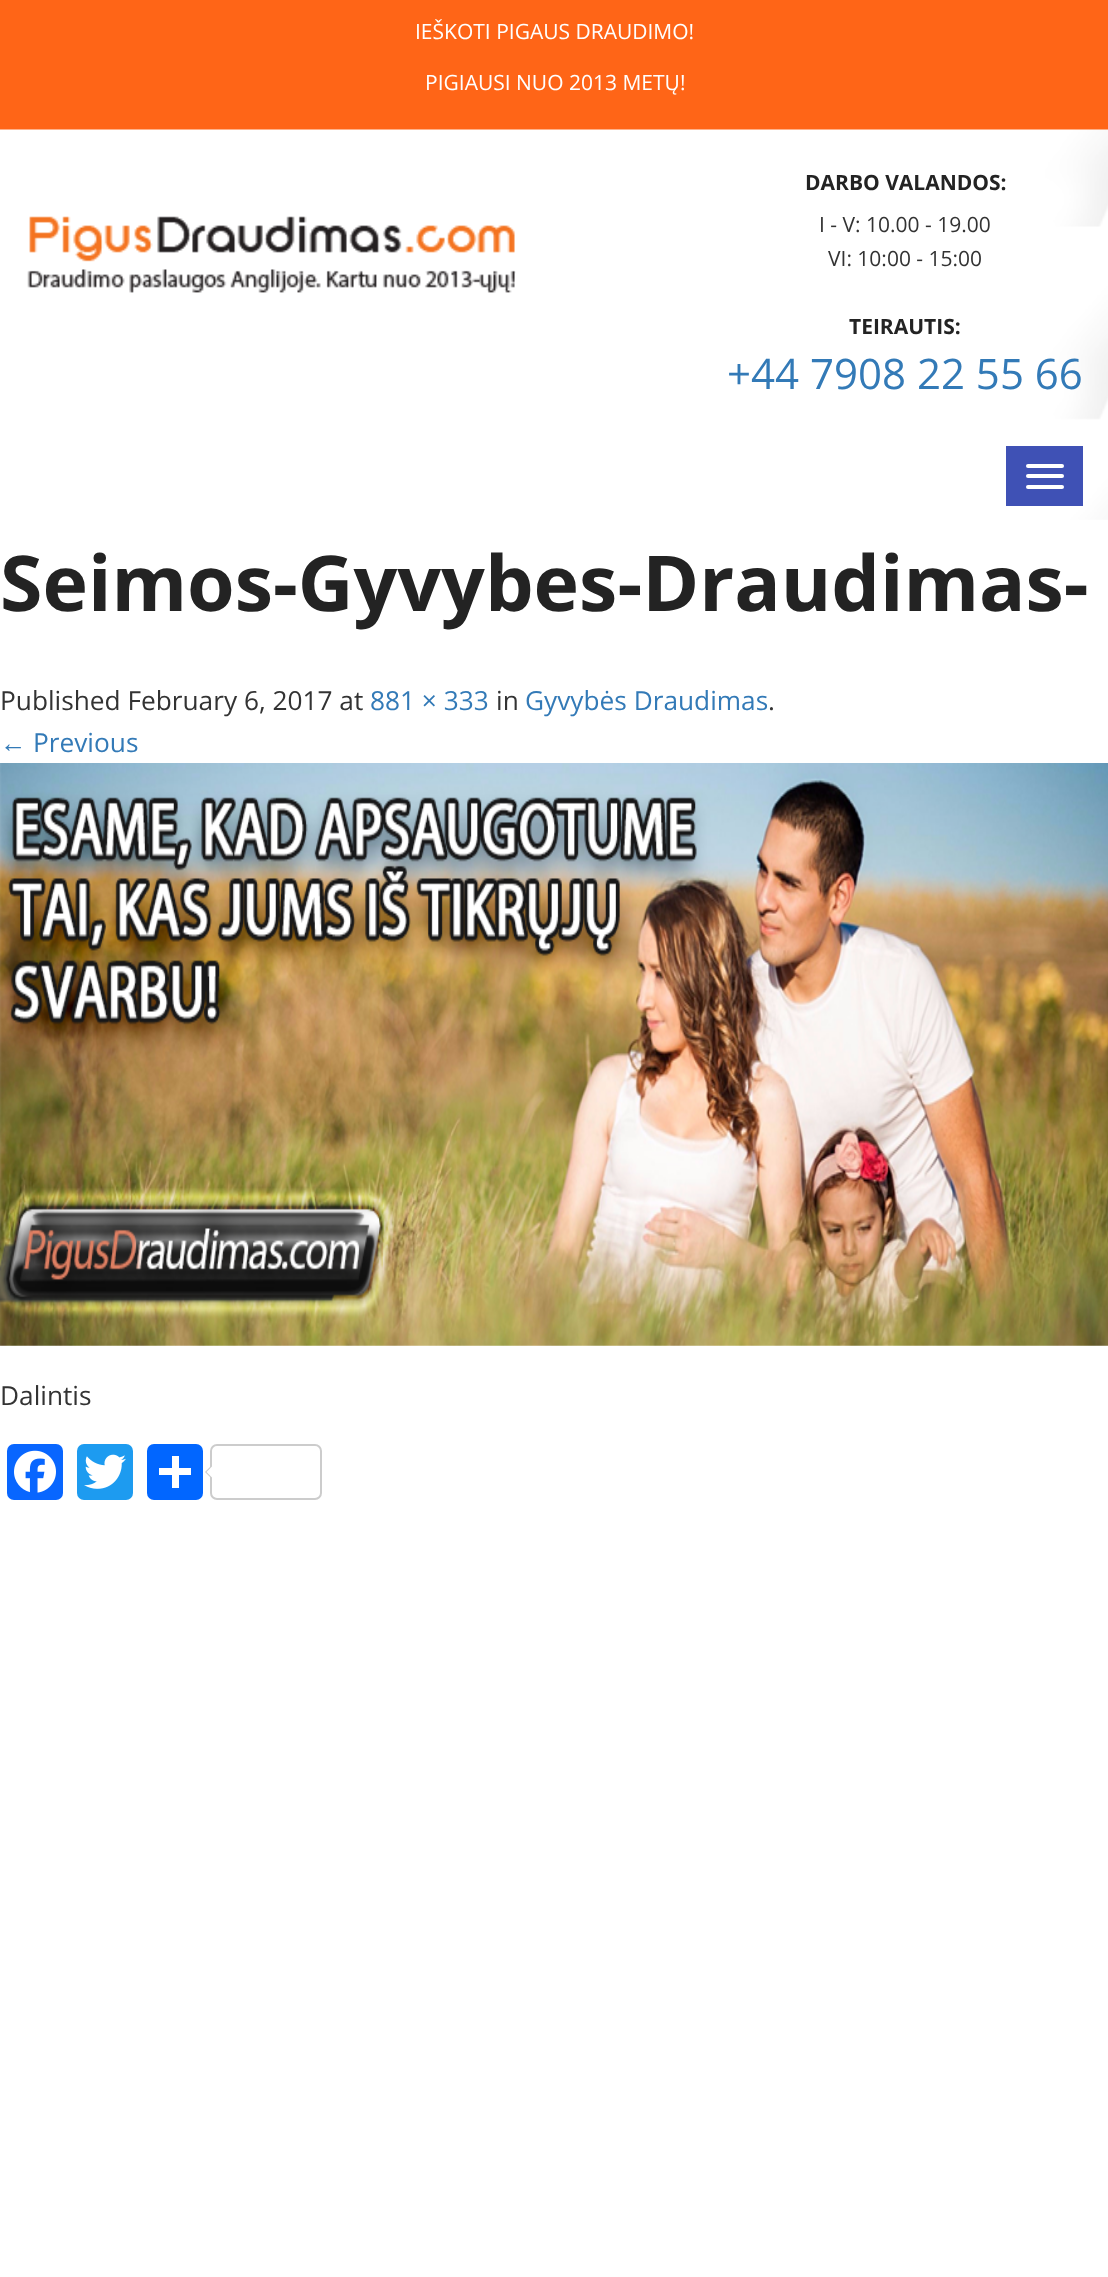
<svg xmlns="http://www.w3.org/2000/svg" width="1108" height="2277">
<rect width="100%" height="100%" fill="#fff"/>
<rect width="1108" height="130" fill="#ff6517"/>
<text x="415" y="39" style="font-family:Open Sans;font-size:21px;fill:#fff">IEŠKOTI PIGAUS DRAUDIMO!</text>
<text x="425" y="90" style="font-family:Open Sans;font-size:21px;fill:#fff">PIGIAUSI NUO 2013 METŲ!</text>
<image x="0" y="129" width="1108" height="391" href="media/1.png"/>
<image x="27" y="216" width="489" height="77" href="media/2.png"/>
<text x="805" y="190" style="font-family:Open Sans;font-size:21px;font-weight:bold;fill:#232323">DARBO VALANDOS:</text>
<text x="819" y="232" style="font-family:Open Sans;font-size:21px;fill:#333">I - V: 10.00 - 19.00</text>
<text x="828" y="266" style="font-family:Open Sans;font-size:21px;fill:#333">VI: 10:00 - 15:00</text>
<text x="849" y="334" style="font-family:Open Sans;font-size:21px;font-weight:bold;fill:#232323">TEIRAUTIS:</text>
<text x="727" y="389" style="font-family:Open Sans;font-size:42px;fill:#337ab7">+44 7908 22 55 66</text>
<rect x="1006" y="446" width="77" height="60" fill="#3f51b5"/>
<rect x="1026" y="464" width="38" height="4" rx="2" fill="#fff"/>
<rect x="1026" y="474" width="38" height="4" rx="2" fill="#fff"/>
<rect x="1026" y="485" width="38" height="4" rx="2" fill="#fff"/>
<text x="0" y="611" style="font-family:Open Sans;font-size:77px;font-weight:bold;fill:#232323">Seimos-Gyvybes-Draudimas-</text>
<text x="0" y="710" style="font-family:Open Sans;font-size:26.25px;fill:#333">Published February 6, 2017 at</text>
<text x="370" y="710" style="font-family:Open Sans;font-size:26.25px;fill:#337ab7">881 × 333</text>
<text x="496" y="710" style="font-family:Open Sans;font-size:26.25px;fill:#333">in</text>
<text x="525" y="710" style="font-family:Open Sans;font-size:26.25px;fill:#337ab7">Gyvybės Draudimas</text>
<text x="768" y="710" style="font-family:Open Sans;font-size:26.25px;fill:#333">.</text>
<text x="0" y="752" style="font-family:Liberation Sans;font-size:26.25px;fill:#337ab7">←</text>
<text x="33" y="752" style="font-family:Open Sans;font-size:26.25px;fill:#337ab7">Previous</text>
<image x="0" y="763" width="1108" height="583" href="media/3.png"/>
<text x="0" y="1405" style="font-family:Open Sans;font-size:26.25px;fill:#333">Dalintis</text>
<rect x="7" y="1444" width="56" height="56" rx="7" fill="#0866ff"/>
<image x="14" y="1450" width="42" height="43" href="media/4.png"/>
<rect x="77" y="1444" width="56" height="56" rx="7" fill="#1d9bf0"/>
<image x="84" y="1454" width="42" height="35" href="media/5.png"/>
<rect x="147" y="1444" width="56" height="56" rx="7" fill="#0166ff"/>
<rect x="172" y="1456" width="7" height="32" fill="#fff"/>
<rect x="159" y="1468" width="32" height="7" fill="#fff"/>
<rect x="211" y="1445" width="110" height="54" rx="6" fill="none" stroke="#ccc" stroke-width="2"/>
<path d="M212 1465v14l-7-7z" fill="#ccc"/>
<path d="M213.5 1465v14l-7-7z" fill="#fff"/>
</svg>
